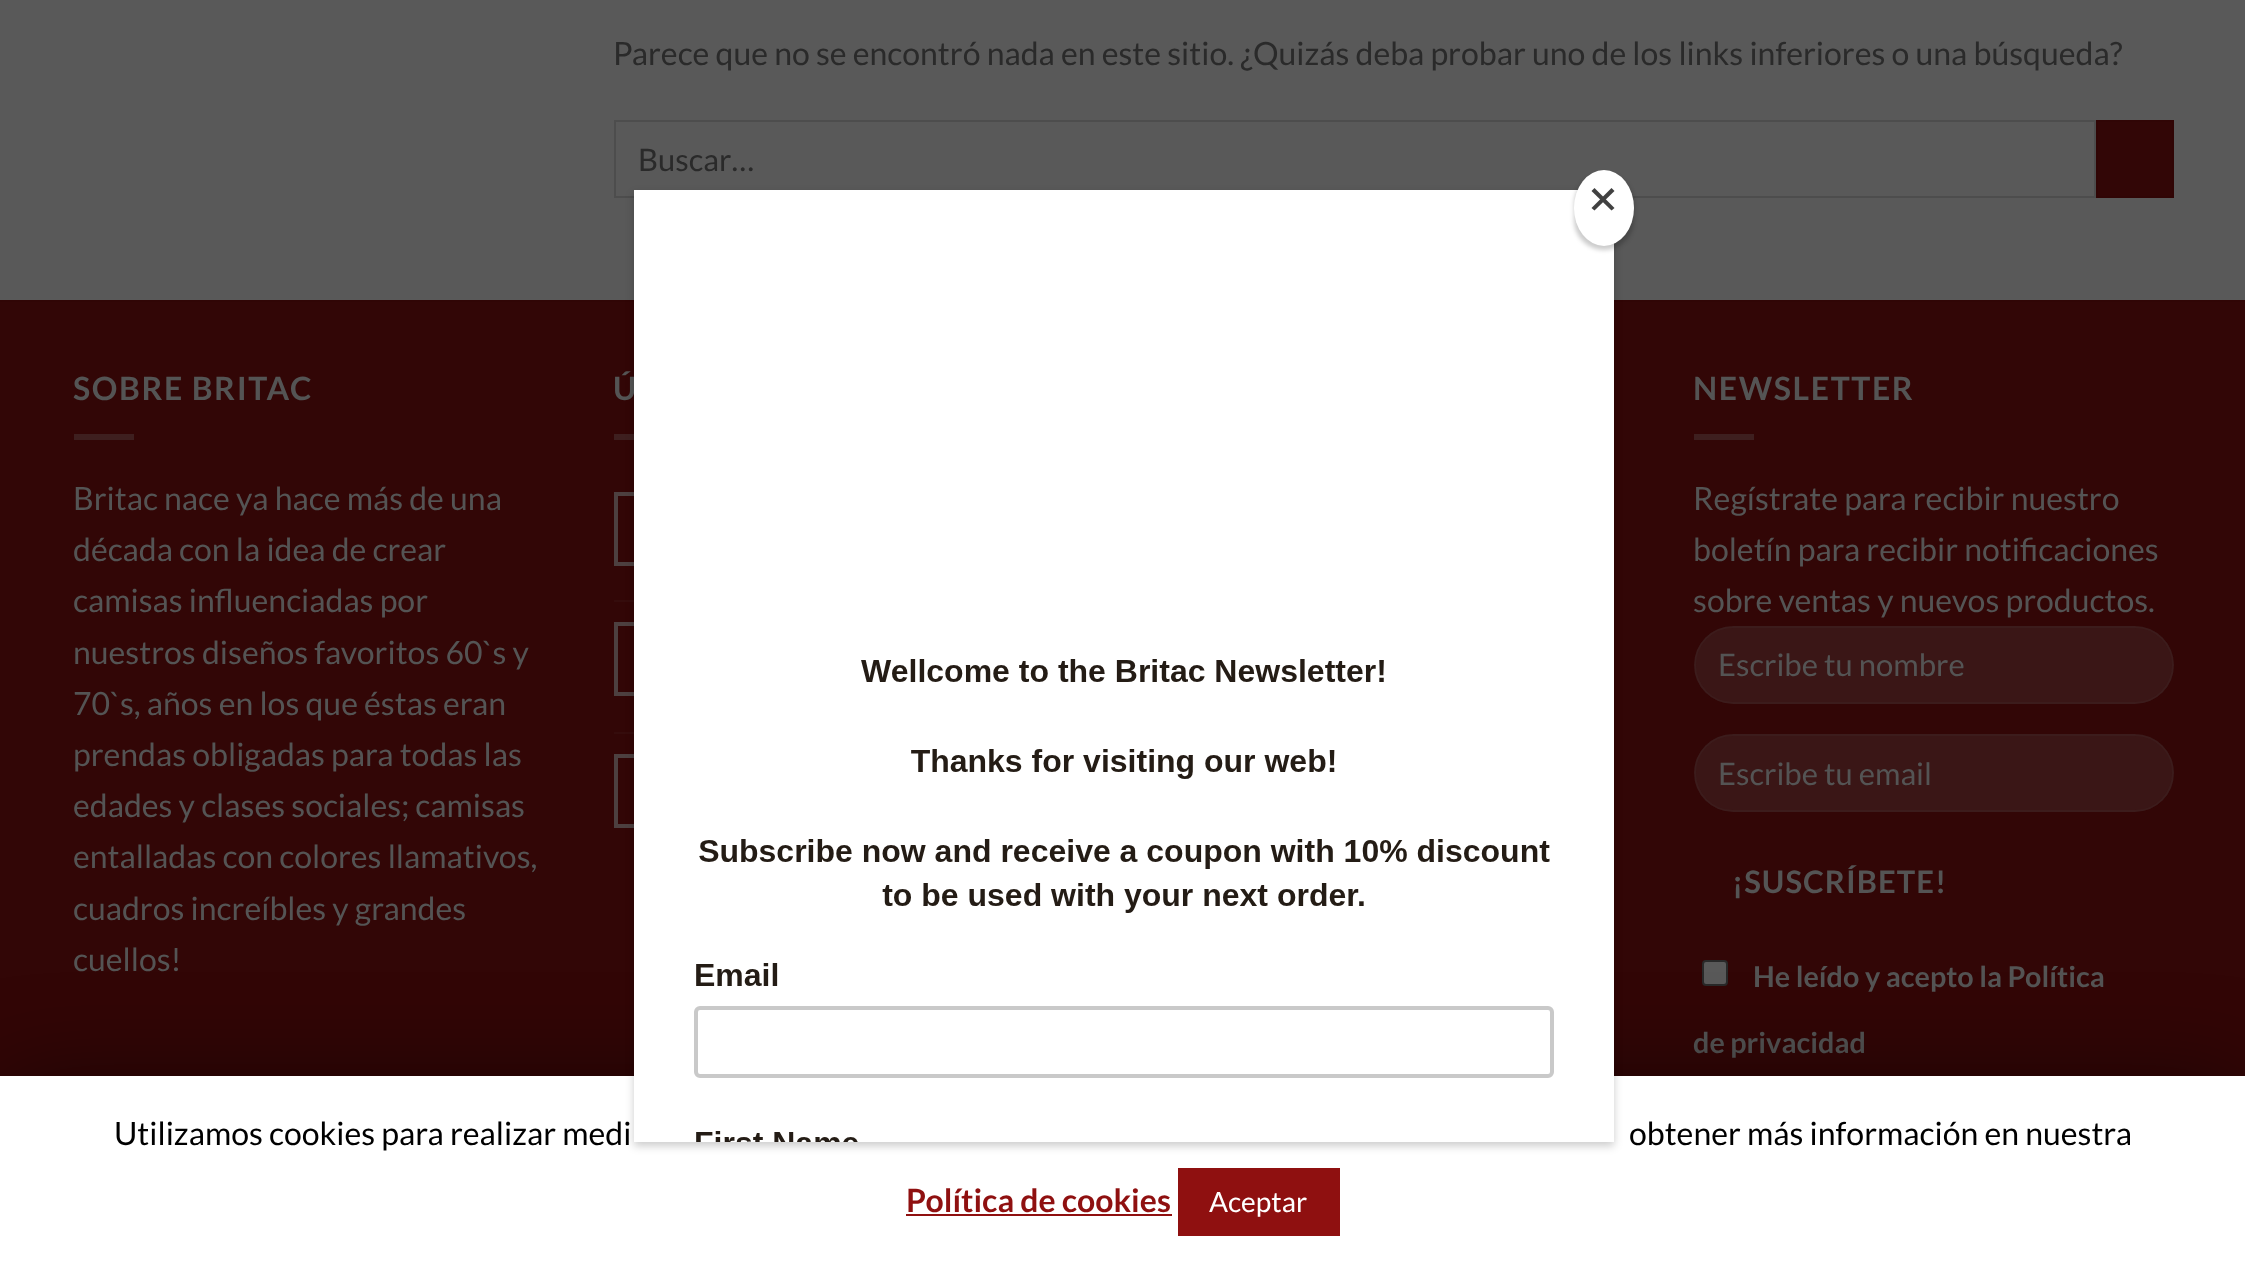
<svg xmlns="http://www.w3.org/2000/svg" width="2245" height="1261">
<rect width="100%" height="100%" fill="#595959"/>
<text x="613" y="65" style="font-family:Lato;font-size:32px;fill:#2a2a2a">Parece que no se encontró nada en este sitio. ¿Quizás deba probar uno de los links inferiores o una búsqueda?</text>
<rect x="615" y="121" width="1480" height="76" fill="none" stroke="#4d4d4d" stroke-width="2"/>
<text x="638" y="171" style="font-family:Lato;font-size:31px;fill:#2a2a2a">Buscar…</text>
<rect x="2097" y="121" width="76" height="76" fill="#320606" stroke="#300505" stroke-width="2"/>
<rect y="302" width="2245" height="774" fill="#320606"/>
<rect y="300" width="2245" height="2" fill="#300505"/>
<text x="73" y="400" style="font-family:Lato;font-size:32px;font-weight:bold;letter-spacing:1.6px;fill:#545454">SOBRE BRITAC</text>
<rect x="74" y="434" width="60" height="6" fill="#3e1f1f"/>
<text x="73" y="510" style="font-family:Lato;font-size:32px;fill:#545454">Britac nace ya hace más de una</text>
<text x="73" y="561" style="font-family:Lato;font-size:32px;fill:#545454">década con la idea de crear</text>
<text x="73" y="612" style="font-family:Lato;font-size:32px;fill:#545454">camisas influenciadas por</text>
<text x="73" y="664" style="font-family:Lato;font-size:32px;fill:#545454">nuestros diseños favoritos 60`s y</text>
<text x="73" y="715" style="font-family:Lato;font-size:32px;fill:#545454">70`s, años en los que éstas eran</text>
<text x="73" y="766" style="font-family:Lato;font-size:32px;fill:#545454">prendas obligadas para todas las</text>
<text x="73" y="817" style="font-family:Lato;font-size:32px;fill:#545454">edades y clases sociales; camisas</text>
<text x="73" y="868" style="font-family:Lato;font-size:32px;fill:#545454">entalladas con colores llamativos,</text>
<text x="73" y="920" style="font-family:Lato;font-size:32px;fill:#545454">cuadros increíbles y grandes</text>
<text x="73" y="971" style="font-family:Lato;font-size:32px;fill:#545454">cuellos!</text>
<text x="613" y="400" style="font-family:Lato;font-size:32px;font-weight:bold;letter-spacing:1.6px;fill:#545454">Ú</text>
<rect x="614" y="434" width="20" height="6" fill="#3e1f1f"/>
<rect x="616" y="494" width="68" height="70" fill="none" stroke="#4d4040" stroke-width="4"/>
<rect x="614" y="600" width="20" height="2" fill="#350c0c"/>
<rect x="616" y="624" width="68" height="70" fill="none" stroke="#4d4040" stroke-width="4"/>
<rect x="614" y="732" width="20" height="2" fill="#350c0c"/>
<rect x="616" y="756" width="68" height="70" fill="none" stroke="#4d4040" stroke-width="4"/>
<text x="1693" y="400" style="font-family:Lato;font-size:32px;font-weight:bold;letter-spacing:1.6px;fill:#545454">NEWSLETTER</text>
<rect x="1694" y="434" width="60" height="6" fill="#3e1f1f"/>
<text x="1693" y="510" style="font-family:Lato;font-size:32px;fill:#545454">Regístrate para recibir nuestro</text>
<text x="1693" y="561" style="font-family:Lato;font-size:32px;fill:#545454">boletín para recibir notificaciones</text>
<text x="1693" y="612" style="font-family:Lato;font-size:32px;fill:#545454">sobre ventas y nuevos productos.</text>
<rect x="1694" y="626" width="480" height="78" rx="39" fill="#3a1616"/>
<rect x="1695" y="627" width="478" height="76" rx="38" fill="none" stroke="#59595917" stroke-width="2"/>
<text x="1718" y="676" style="font-family:Lato;font-size:31px;fill:#545454">Escribe tu nombre</text>
<rect x="1694" y="734" width="480" height="78" rx="39" fill="#3a1616"/>
<rect x="1695" y="735" width="478" height="76" rx="38" fill="none" stroke="#59595917" stroke-width="2"/>
<text x="1718" y="785" style="font-family:Lato;font-size:31px;fill:#545454">Escribe tu email</text>
<text x="1732" y="893" style="font-family:Lato;font-size:31px;font-weight:bold;letter-spacing:1px;fill:#545454">¡SUSCRÍBETE!</text>
<rect x="1703" y="961" width="24" height="24" rx="3" fill="#595959" stroke="#292929" stroke-width="2"/>
<text x="1753" y="987" style="font-family:Lato;font-size:28.75px;font-weight:bold;fill:#545454">He leído y acepto la Política</text>
<text x="1693" y="1053" style="font-family:Lato;font-size:28.75px;font-weight:bold;fill:#545454">de privacidad</text>
<rect y="1086" width="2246" height="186" fill="#00000080" filter="blur(50px)"/>
<rect y="1076" width="2245" height="185" fill="#fff"/>
<rect x="634" y="194" width="980" height="952" fill="#00000033" filter="blur(4px)"/>
<image x="634" y="190" width="980" height="952" href="media/1.png"/>
<rect x="1574" y="174" width="60" height="76" rx="30" fill="#00000033" filter="blur(2px)"/>
<ellipse cx="1604" cy="208" rx="30" ry="38" fill="#fff"/>
<path d="M1611.5 188l3 3l-20 19.5l-3-2.5z" fill="#414141"/>
<path d="M1591.5 191l3-3l20 20l-3 2.5z" fill="#414141"/>
<text x="114" y="1145" style="font-family:Lato;font-size:32px;fill:#000">Utilizamos cookies para realizar medi</text>
<text x="1629" y="1145" style="font-family:Lato;font-size:32px;fill:#000">obtener más información en nuestra</text>
<text x="906" y="1212" style="font-family:Lato;font-size:32px;font-weight:bold;fill:#8f1010">Política de cookies</text>
<rect x="906" y="1214" width="266" height="2" fill="#8f1010"/>
<rect x="1178" y="1168" width="162" height="68" fill="#8f1010"/>
<text x="1209" y="1212" style="font-family:Lato;font-size:28px;fill:#fff">Aceptar</text>
</svg>
